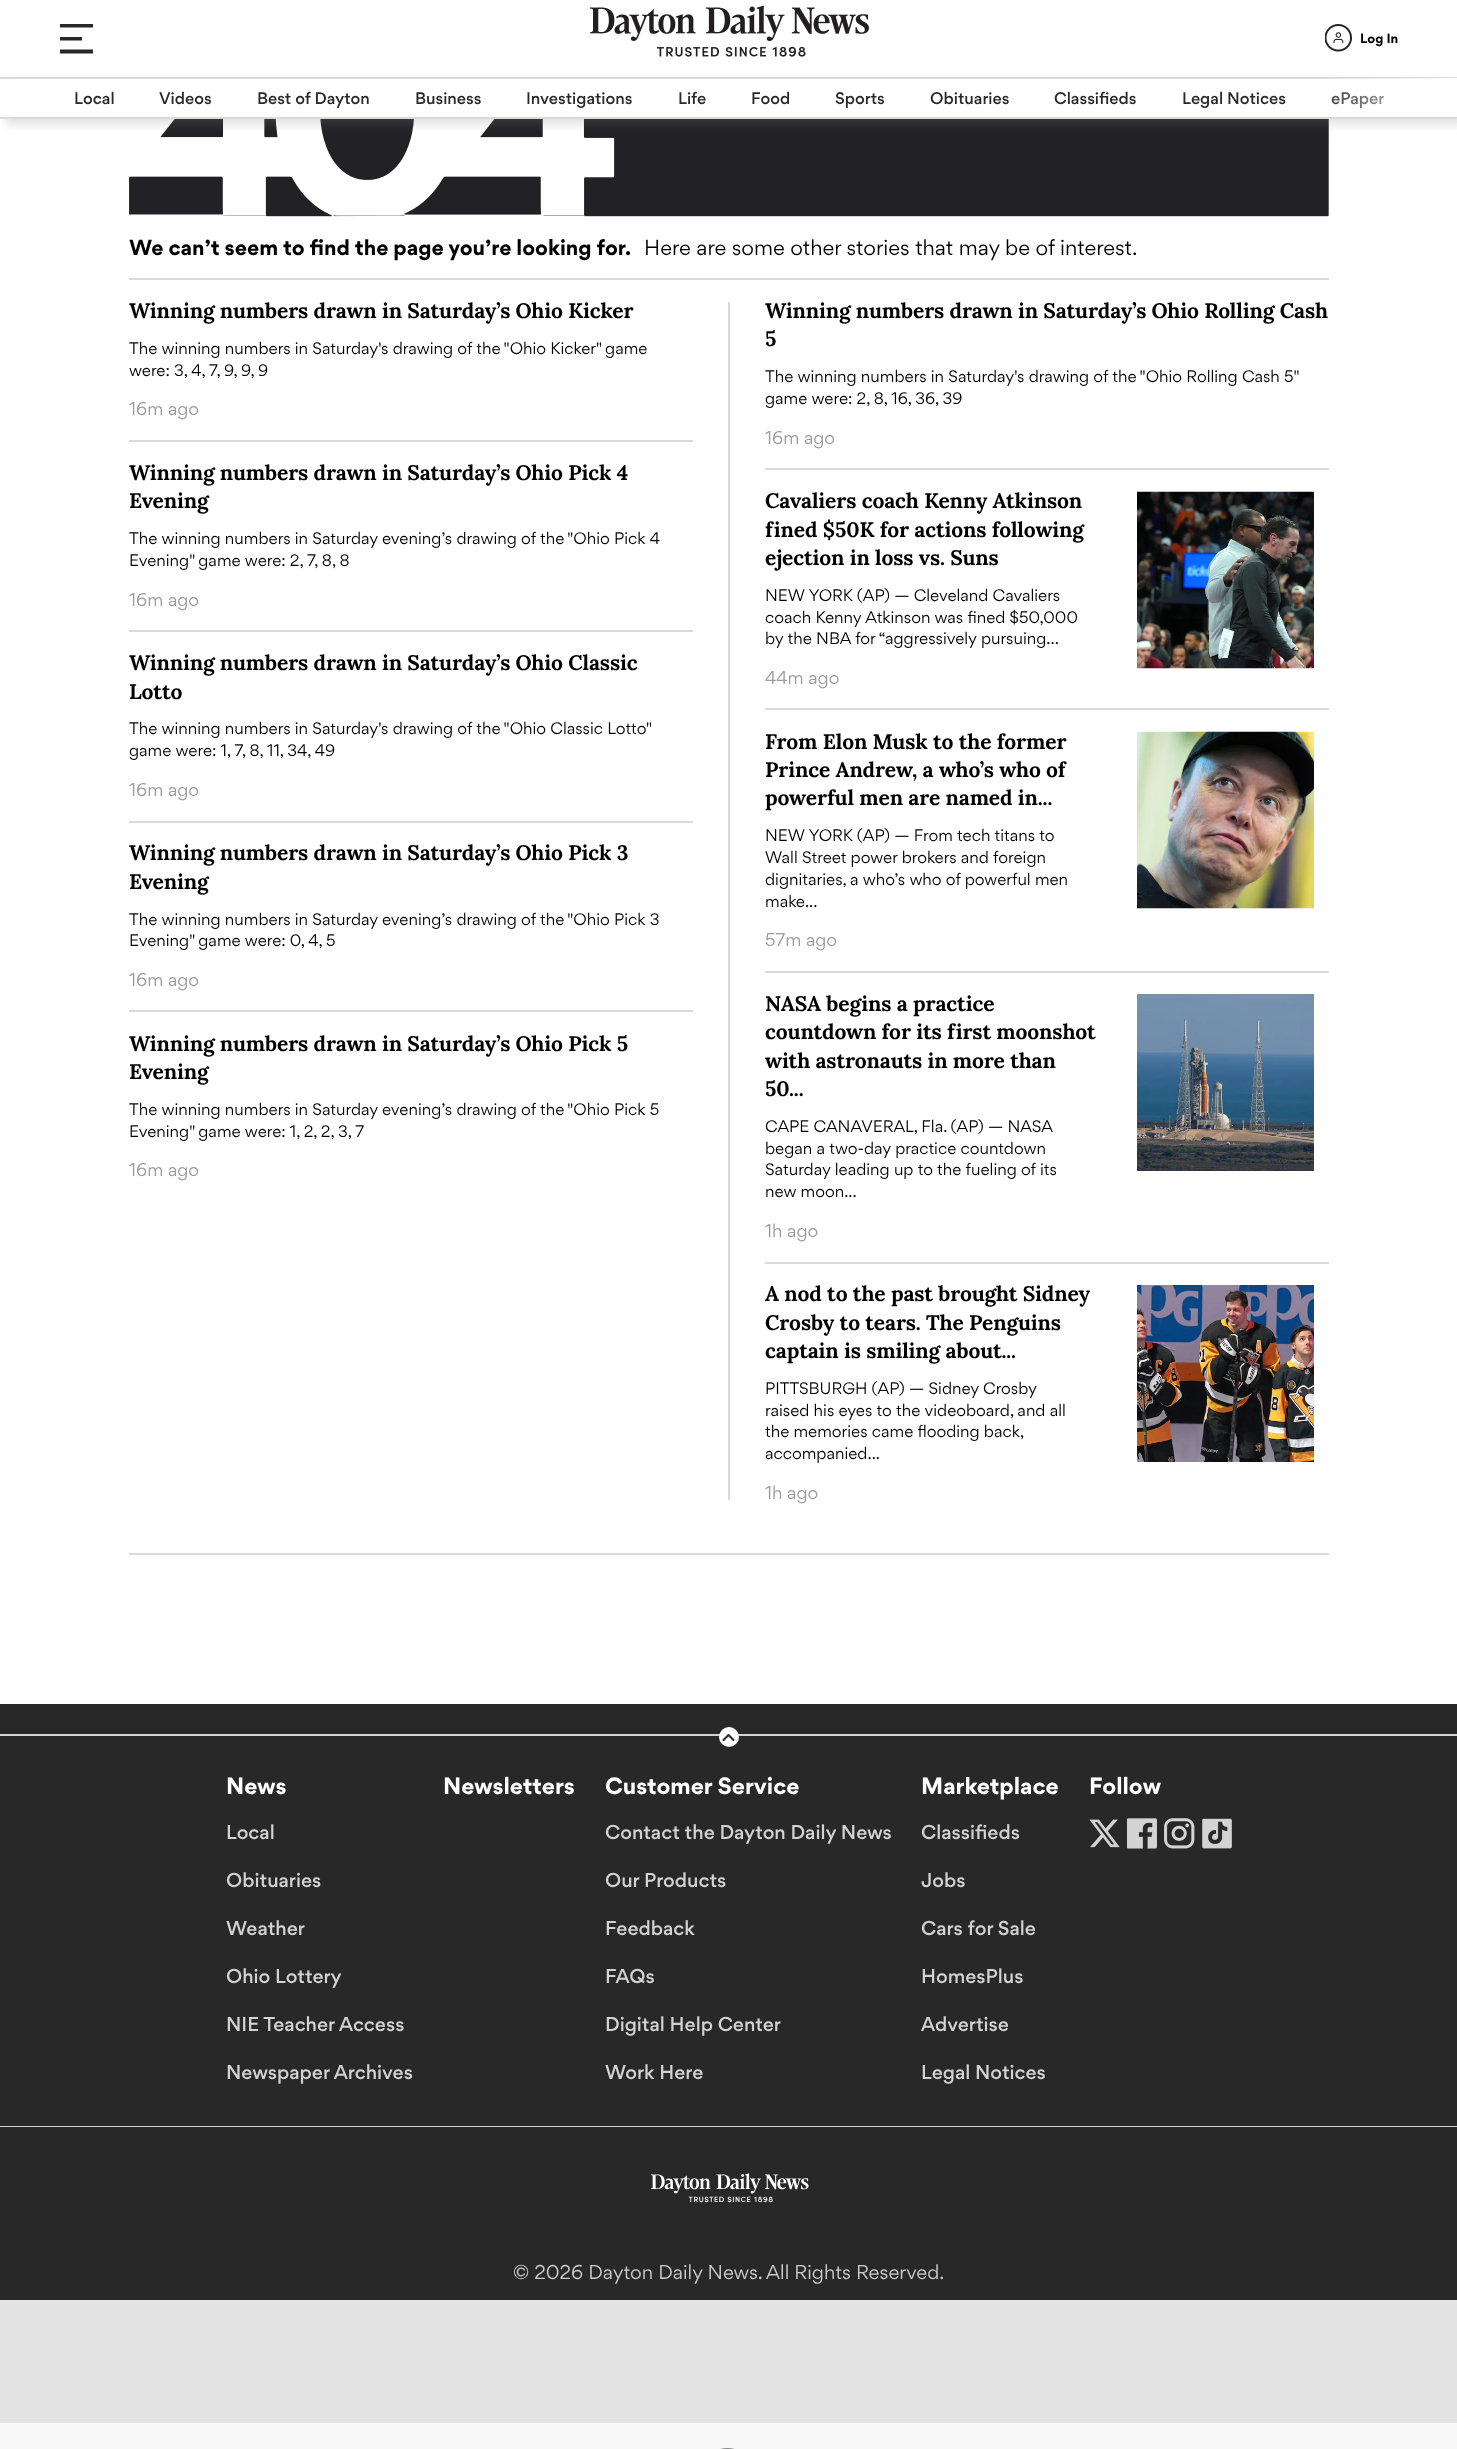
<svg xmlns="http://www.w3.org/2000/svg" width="1457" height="2449">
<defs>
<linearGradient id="g1" gradientUnits="userSpaceOnUse" x1="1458" y1="97" x2="1313" y2="98"><stop offset="0" stop-color="#fff"/><stop offset="1" stop-color="#fff" stop-opacity="0"/></linearGradient>
</defs>
<rect width="100%" height="100%" fill="#fff"/>
<path d="M60 24h33v3.5h-33zm0 13h22v3.5h-22zm0 12.5h33v4h-33z" fill="#282828"/>
<image x="590" y="5" width="279" height="52" href="media/1.png"/>
<image x="1325" y="24" width="27" height="28" href="media/2.png"/>
<text x="1360" y="43" style="font-family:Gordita;font-size:12px;font-weight:bold;fill:#000">Log In</text>
<image x="129" y="119" width="1200" height="98" href="media/3.png"/>
<rect x="6" y="83" width="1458" height="42" fill="#85858538" filter="blur(4.5px)"/>
<rect y="79" width="1457" height="38" fill="#fff"/>
<rect y="77" width="1457" height="2" fill="#dadada"/>
<rect y="117" width="1457" height="2" fill="#dadada"/>
<text x="74" y="104" style="font-family:Gordita;font-size:15px;font-weight:500;fill:#282828">Local</text>
<text x="159" y="104" style="font-family:Gordita;font-size:15px;font-weight:500;fill:#282828">Videos</text>
<text x="257" y="104" style="font-family:Gordita;font-size:15px;font-weight:500;fill:#282828">Best of Dayton</text>
<text x="415" y="104" style="font-family:Gordita;font-size:15px;font-weight:500;fill:#282828">Business</text>
<text x="526" y="104" style="font-family:Gordita;font-size:15px;font-weight:500;fill:#282828">Investigations</text>
<text x="678" y="104" style="font-family:Gordita;font-size:15px;font-weight:500;fill:#282828">Life</text>
<text x="751" y="104" style="font-family:Gordita;font-size:15px;font-weight:500;fill:#282828">Food</text>
<text x="835" y="104" style="font-family:Gordita;font-size:15px;font-weight:500;fill:#282828">Sports</text>
<text x="930" y="104" style="font-family:Gordita;font-size:15px;font-weight:500;fill:#282828">Obituaries</text>
<text x="1054" y="104" style="font-family:Gordita;font-size:15px;font-weight:500;fill:#282828">Classifieds</text>
<text x="1182" y="104" style="font-family:Gordita;font-size:15px;font-weight:500;fill:#282828">Legal Notices</text>
<text x="1331" y="104" style="font-family:Gordita;font-size:15px;font-weight:500;fill:#282828">ePaper</text>
<rect x="1323" y="78" width="134" height="30" fill="url(#g1)"/>
<rect x="129" y="278" width="1200" height="2" fill="#dadada"/>
<text x="129" y="255" style="font-family:Gordita;font-size:19.5px;font-weight:bold;fill:#000">We can’t seem to find the page you’re looking for.</text>
<text x="644" y="255" style="font-family:Gordita;font-size:19.5px;fill:#000">Here are some other stories that may be of interest.</text>
<rect x="129" y="1553" width="1200" height="2" fill="#dadada"/>
<rect x="129" y="440" width="564" height="2" fill="#dadada"/>
<text x="129" y="318" style="font-family:Lora;font-size:21px;font-weight:bold;letter-spacing:-0.12px;fill:#000">Winning numbers drawn in Saturday’s Ohio Kicker</text>
<text x="129" y="354" style="font-family:Gordita;font-size:15px;fill:#000">The winning numbers in Saturday's drawing of the "Ohio Kicker" game</text>
<text x="129" y="376" style="font-family:Gordita;font-size:15px;fill:#000">were: 3, 4, 7, 9, 9, 9</text>
<text x="129" y="415" style="font-family:Gordita;font-size:16.5px;fill:#9b9b9b">16m ago</text>
<rect x="129" y="630" width="564" height="2" fill="#dadada"/>
<text x="129" y="480" style="font-family:Lora;font-size:21px;font-weight:bold;letter-spacing:-0.12px;fill:#000">Winning numbers drawn in Saturday’s Ohio Pick 4</text>
<text x="129" y="508" style="font-family:Lora;font-size:21px;font-weight:bold;letter-spacing:-0.12px;fill:#000">Evening</text>
<text x="129" y="544" style="font-family:Gordita;font-size:15px;fill:#000">The winning numbers in Saturday evening’s drawing of the "Ohio Pick 4</text>
<text x="129" y="566" style="font-family:Gordita;font-size:15px;fill:#000">Evening" game were: 2, 7, 8, 8</text>
<text x="129" y="606" style="font-family:Gordita;font-size:16.5px;fill:#9b9b9b">16m ago</text>
<rect x="129" y="821" width="564" height="2" fill="#dadada"/>
<text x="129" y="670" style="font-family:Lora;font-size:21px;font-weight:bold;letter-spacing:-0.12px;fill:#000">Winning numbers drawn in Saturday’s Ohio Classic</text>
<text x="129" y="699" style="font-family:Lora;font-size:21px;font-weight:bold;letter-spacing:-0.12px;fill:#000">Lotto</text>
<text x="129" y="734" style="font-family:Gordita;font-size:15px;fill:#000">The winning numbers in Saturday's drawing of the "Ohio Classic Lotto"</text>
<text x="129" y="756" style="font-family:Gordita;font-size:15px;fill:#000">game were: 1, 7, 8, 11, 34, 49</text>
<text x="129" y="796" style="font-family:Gordita;font-size:16.5px;fill:#9b9b9b">16m ago</text>
<rect x="129" y="1010" width="564" height="2" fill="#dadada"/>
<text x="129" y="860" style="font-family:Lora;font-size:21px;font-weight:bold;letter-spacing:-0.12px;fill:#000">Winning numbers drawn in Saturday’s Ohio Pick 3</text>
<text x="129" y="889" style="font-family:Lora;font-size:21px;font-weight:bold;letter-spacing:-0.12px;fill:#000">Evening</text>
<text x="129" y="925" style="font-family:Gordita;font-size:15px;fill:#000">The winning numbers in Saturday evening’s drawing of the "Ohio Pick 3</text>
<text x="129" y="946" style="font-family:Gordita;font-size:15px;fill:#000">Evening" game were: 0, 4, 5</text>
<text x="129" y="986" style="font-family:Gordita;font-size:16.5px;fill:#9b9b9b">16m ago</text>
<text x="129" y="1051" style="font-family:Lora;font-size:21px;font-weight:bold;letter-spacing:-0.12px;fill:#000">Winning numbers drawn in Saturday’s Ohio Pick 5</text>
<text x="129" y="1079" style="font-family:Lora;font-size:21px;font-weight:bold;letter-spacing:-0.12px;fill:#000">Evening</text>
<text x="129" y="1115" style="font-family:Gordita;font-size:15px;fill:#000">The winning numbers in Saturday evening’s drawing of the "Ohio Pick 5</text>
<text x="129" y="1137" style="font-family:Gordita;font-size:15px;fill:#000">Evening" game were: 1, 2, 2, 3, 7</text>
<text x="129" y="1176" style="font-family:Gordita;font-size:16.5px;fill:#9b9b9b">16m ago</text>
<rect x="728" y="302" width="2" height="1198" fill="#dadada"/>
<rect x="765" y="468" width="564" height="2" fill="#dadada"/>
<text x="765" y="318" style="font-family:Lora;font-size:21px;font-weight:bold;letter-spacing:-0.12px;fill:#000">Winning numbers drawn in Saturday’s Ohio Rolling Cash</text>
<text x="765" y="346" style="font-family:Lora;font-size:21px;font-weight:bold;letter-spacing:-0.12px;fill:#000">5</text>
<text x="765" y="382" style="font-family:Gordita;font-size:15px;fill:#000">The winning numbers in Saturday's drawing of the "Ohio Rolling Cash 5"</text>
<text x="765" y="404" style="font-family:Gordita;font-size:15px;fill:#000">game were: 2, 8, 16, 36, 39</text>
<text x="765" y="444" style="font-family:Gordita;font-size:16.5px;fill:#9b9b9b">16m ago</text>
<rect x="765" y="708" width="564" height="2" fill="#dadada"/>
<text x="765" y="508" style="font-family:Lora;font-size:21px;font-weight:bold;letter-spacing:-0.12px;fill:#000">Cavaliers coach Kenny Atkinson</text>
<text x="765" y="537" style="font-family:Lora;font-size:21px;font-weight:bold;letter-spacing:-0.12px;fill:#000">fined $50K for actions following</text>
<text x="765" y="565" style="font-family:Lora;font-size:21px;font-weight:bold;letter-spacing:-0.12px;fill:#000">ejection in loss vs. Suns</text>
<text x="765" y="601" style="font-family:Gordita;font-size:15px;fill:#000">NEW YORK (AP) — Cleveland Cavaliers</text>
<text x="765" y="623" style="font-family:Gordita;font-size:15px;fill:#000">coach Kenny Atkinson was fined $50,000</text>
<text x="765" y="644" style="font-family:Gordita;font-size:15px;fill:#000">by the NBA for “aggressively pursuing...</text>
<text x="765" y="684" style="font-family:Gordita;font-size:16.5px;fill:#9b9b9b">44m ago</text>
<image x="1137" y="491" width="177" height="178" href="media/4.png"/>
<rect x="765" y="971" width="564" height="2" fill="#dadada"/>
<text x="765" y="749" style="font-family:Lora;font-size:21px;font-weight:bold;letter-spacing:-0.12px;fill:#000">From Elon Musk to the former</text>
<text x="765" y="777" style="font-family:Lora;font-size:21px;font-weight:bold;letter-spacing:-0.12px;fill:#000">Prince Andrew, a who’s who of</text>
<text x="765" y="805" style="font-family:Lora;font-size:21px;font-weight:bold;letter-spacing:-0.12px;fill:#000">powerful men are named in...</text>
<text x="765" y="841" style="font-family:Gordita;font-size:15px;fill:#000">NEW YORK (AP) — From tech titans to</text>
<text x="765" y="863" style="font-family:Gordita;font-size:15px;fill:#000">Wall Street power brokers and foreign</text>
<text x="765" y="885" style="font-family:Gordita;font-size:15px;fill:#000">dignitaries, a who’s who of powerful men</text>
<text x="765" y="907" style="font-family:Gordita;font-size:15px;fill:#000">make...</text>
<text x="765" y="946" style="font-family:Gordita;font-size:16.5px;fill:#9b9b9b">57m ago</text>
<image x="1137" y="731" width="177" height="178" href="media/5.png"/>
<rect x="765" y="1262" width="564" height="2" fill="#dadada"/>
<text x="765" y="1011" style="font-family:Lora;font-size:21px;font-weight:bold;letter-spacing:-0.12px;fill:#000">NASA begins a practice</text>
<text x="765" y="1039" style="font-family:Lora;font-size:21px;font-weight:bold;letter-spacing:-0.12px;fill:#000">countdown for its first moonshot</text>
<text x="765" y="1068" style="font-family:Lora;font-size:21px;font-weight:bold;letter-spacing:-0.12px;fill:#000">with astronauts in more than</text>
<text x="765" y="1096" style="font-family:Lora;font-size:21px;font-weight:bold;letter-spacing:-0.12px;fill:#000">50...</text>
<text x="765" y="1132" style="font-family:Gordita;font-size:15px;fill:#000">CAPE CANAVERAL, Fla. (AP) — NASA</text>
<text x="765" y="1154" style="font-family:Gordita;font-size:15px;fill:#000">began a two-day practice countdown</text>
<text x="765" y="1175" style="font-family:Gordita;font-size:15px;fill:#000">Saturday leading up to the fueling of its</text>
<text x="765" y="1197" style="font-family:Gordita;font-size:15px;fill:#000">new moon...</text>
<text x="765" y="1237" style="font-family:Gordita;font-size:16.5px;fill:#9b9b9b">1h ago</text>
<image x="1137" y="994" width="177" height="177" href="media/6.png"/>
<text x="765" y="1301" style="font-family:Lora;font-size:21px;font-weight:bold;letter-spacing:-0.12px;fill:#000">A nod to the past brought Sidney</text>
<text x="765" y="1330" style="font-family:Lora;font-size:21px;font-weight:bold;letter-spacing:-0.12px;fill:#000">Crosby to tears. The Penguins</text>
<text x="765" y="1358" style="font-family:Lora;font-size:21px;font-weight:bold;letter-spacing:-0.12px;fill:#000">captain is smiling about...</text>
<text x="765" y="1394" style="font-family:Gordita;font-size:15px;fill:#000">PITTSBURGH (AP) — Sidney Crosby</text>
<text x="765" y="1416" style="font-family:Gordita;font-size:15px;fill:#000">raised his eyes to the videoboard, and all</text>
<text x="765" y="1437" style="font-family:Gordita;font-size:15px;fill:#000">the memories came flooding back,</text>
<text x="765" y="1459" style="font-family:Gordita;font-size:15px;fill:#000">accompanied...</text>
<text x="765" y="1499" style="font-family:Gordita;font-size:16.5px;fill:#9b9b9b">1h ago</text>
<image x="1137" y="1285" width="177" height="177" href="media/7.png"/>
<rect y="1704" width="1457" height="719" fill="#282828"/>
<rect y="1734" width="1457" height="2" fill="#d3d3d3"/>
<circle cx="729" cy="1737" r="10" fill="#fff"/>
<path d="M733.5 1740l-5-5l-5 5" fill="none" stroke="#282828" stroke-width="2.1" stroke-linecap="round" stroke-linejoin="round"/>
<text x="226" y="1794" style="font-family:Gordita;font-size:21px;font-weight:bold;fill:#fff">News</text>
<text x="226" y="1839" style="font-family:Gordita;font-size:18px;font-weight:500;fill:#d3d3d3">Local</text>
<text x="226" y="1887" style="font-family:Gordita;font-size:18px;font-weight:500;fill:#d3d3d3">Obituaries</text>
<text x="226" y="1935" style="font-family:Gordita;font-size:18px;font-weight:500;fill:#d3d3d3">Weather</text>
<text x="226" y="1983" style="font-family:Gordita;font-size:18px;font-weight:500;fill:#d3d3d3">Ohio Lottery</text>
<text x="226" y="2031" style="font-family:Gordita;font-size:18px;font-weight:500;fill:#d3d3d3">NIE Teacher Access</text>
<text x="226" y="2079" style="font-family:Gordita;font-size:18px;font-weight:500;fill:#d3d3d3">Newspaper Archives</text>
<text x="443" y="1794" style="font-family:Gordita;font-size:21px;font-weight:bold;fill:#fff">Newsletters</text>
<text x="605" y="1794" style="font-family:Gordita;font-size:21px;font-weight:bold;fill:#fff">Customer Service</text>
<text x="605" y="1839" style="font-family:Gordita;font-size:18px;font-weight:500;fill:#d3d3d3">Contact the Dayton Daily News</text>
<text x="605" y="1887" style="font-family:Gordita;font-size:18px;font-weight:500;fill:#d3d3d3">Our Products</text>
<text x="605" y="1935" style="font-family:Gordita;font-size:18px;font-weight:500;fill:#d3d3d3">Feedback</text>
<text x="605" y="1983" style="font-family:Gordita;font-size:18px;font-weight:500;fill:#d3d3d3">FAQs</text>
<text x="605" y="2031" style="font-family:Gordita;font-size:18px;font-weight:500;fill:#d3d3d3">Digital Help Center</text>
<text x="605" y="2079" style="font-family:Gordita;font-size:18px;font-weight:500;fill:#d3d3d3">Work Here</text>
<text x="921" y="1794" style="font-family:Gordita;font-size:21px;font-weight:bold;fill:#fff">Marketplace</text>
<text x="921" y="1839" style="font-family:Gordita;font-size:18px;font-weight:500;fill:#d3d3d3">Classifieds</text>
<text x="921" y="1887" style="font-family:Gordita;font-size:18px;font-weight:500;fill:#d3d3d3">Jobs</text>
<text x="921" y="1935" style="font-family:Gordita;font-size:18px;font-weight:500;fill:#d3d3d3">Cars for Sale</text>
<text x="921" y="1983" style="font-family:Gordita;font-size:18px;font-weight:500;fill:#d3d3d3">HomesPlus</text>
<text x="921" y="2031" style="font-family:Gordita;font-size:18px;font-weight:500;fill:#d3d3d3">Advertise</text>
<text x="921" y="2079" style="font-family:Gordita;font-size:18px;font-weight:500;fill:#d3d3d3">Legal Notices</text>
<text x="1089" y="1794" style="font-family:Gordita;font-size:21px;font-weight:bold;fill:#fff">Follow</text>
<image x="1089" y="1819" width="31" height="29" href="media/8.png"/>
<image x="1127" y="1818" width="30" height="31" href="media/9.png"/>
<image x="1164" y="1818" width="31" height="31" href="media/10.png"/>
<image x="1202" y="1818" width="30" height="31" href="media/11.png"/>
<rect y="2126" width="1457" height="1" fill="#d3d3d3"/>
<image x="650" y="2173" width="159" height="30" href="media/12.png"/>
<text x="513" y="2279" style="font-family:Gordita;font-size:18px;fill:#cdcdcd">© 2026 Dayton Daily News. All Rights Reserved.</text>
<rect y="2300" width="1457" height="149" fill="#f7f7f7e6"/>
<rect x="712" y="2449" width="31" height="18" rx="15.5" fill="none" stroke="#888" stroke-width="2"/>
</svg>
